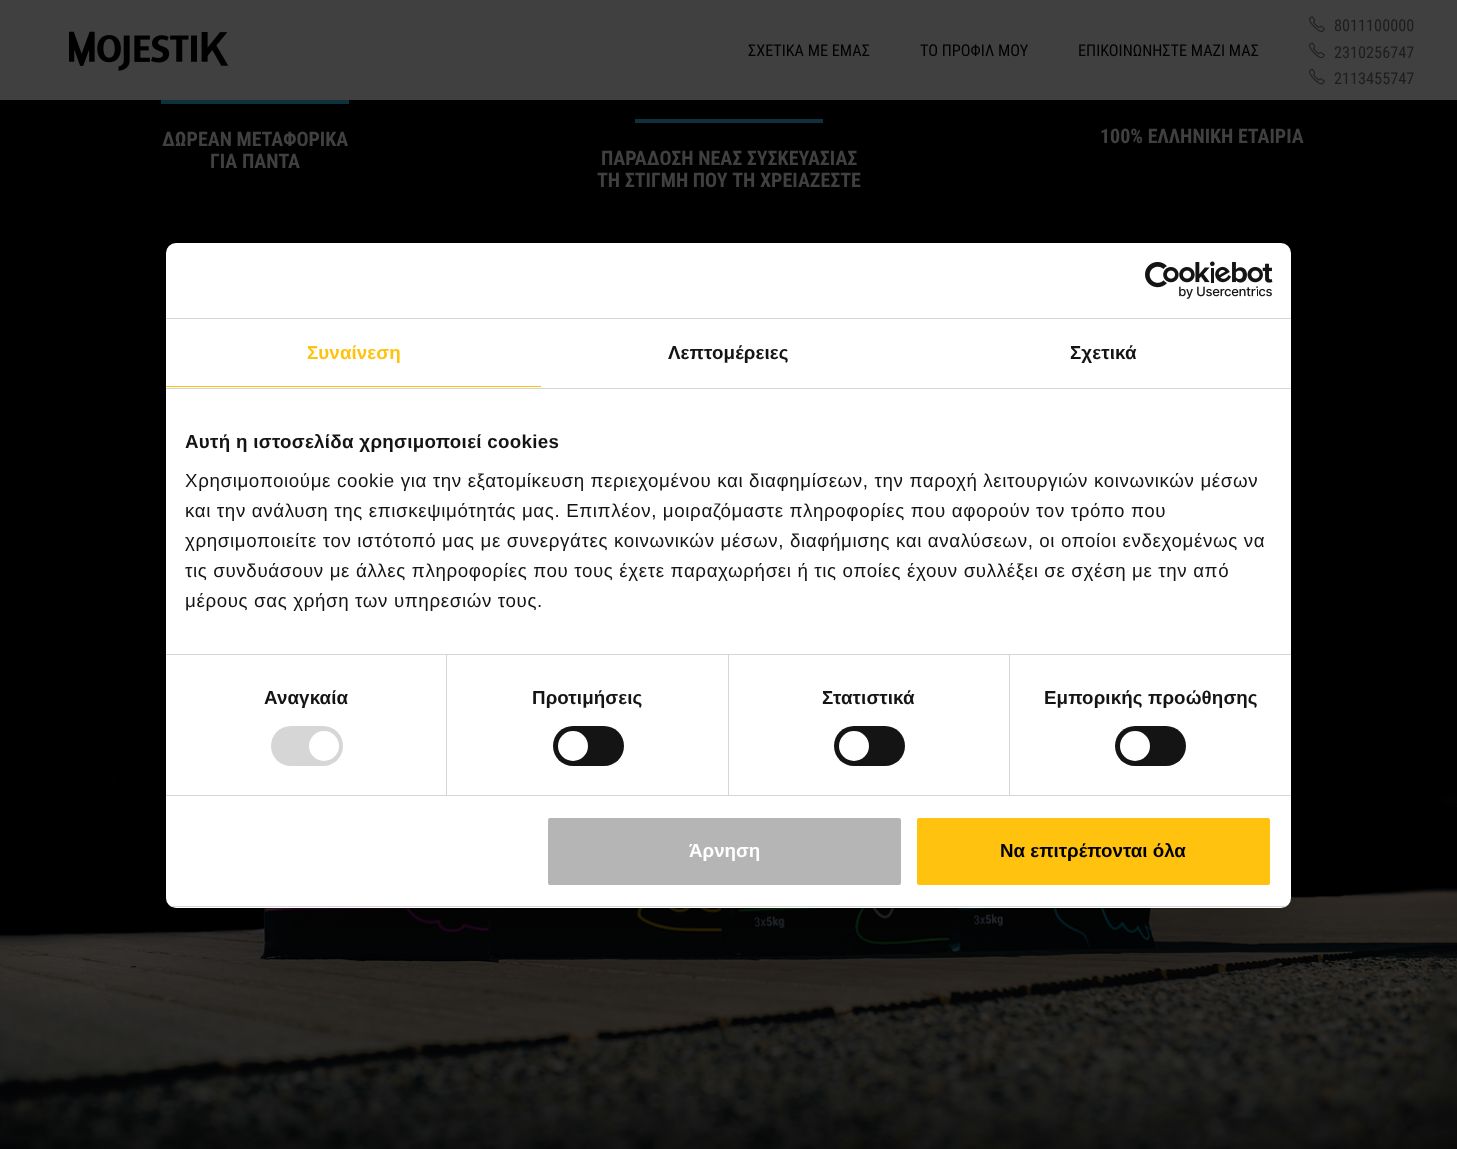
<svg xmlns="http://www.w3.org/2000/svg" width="1457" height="1149">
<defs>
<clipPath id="clip1"><rect x="166" y="243" width="1125" height="665" rx="10"/></clipPath>
</defs>
<rect width="100%" height="100%" fill="#000"/>
<rect width="1457" height="100" fill="#404040"/>
<image x="69" y="31" width="160" height="40" href="media/1.png"/>
<text x="748" y="56" style="font-family:Roboto Condensed;font-size:16.25px;fill:#000">ΣΧΕΤΙΚΑ ΜΕ ΕΜΑΣ</text>
<text x="920" y="56" style="font-family:Roboto Condensed;font-size:16.25px;fill:#000">ΤΟ ΠΡΟΦΙΛ ΜΟΥ</text>
<text x="1078" y="56" style="font-family:Roboto Condensed;font-size:16.25px;fill:#000">ΕΠΙΚΟΙΝΩΝΗΣΤΕ ΜΑΖΙ ΜΑΣ</text>
<image x="1309" y="16" width="16" height="16" href="media/2.png"/>
<text x="1334" y="31" style="font-family:Roboto Condensed;font-size:16.25px;fill:#1d1d1d">8011100000</text>
<image x="1309" y="42" width="16" height="17" href="media/3.png"/>
<text x="1334" y="58" style="font-family:Roboto Condensed;font-size:16.25px;fill:#1d1d1d">2310256747</text>
<image x="1309" y="68" width="16" height="17" href="media/4.png"/>
<text x="1334" y="84" style="font-family:Roboto Condensed;font-size:16.25px;fill:#1d1d1d">2113455747</text>
<rect x="161" y="100" width="188" height="4" fill="#0d323d"/>
<text x="162" y="146" style="font-family:Roboto Condensed;font-size:20px;font-weight:bold;fill:#404040">ΔΩΡΕΑΝ ΜΕΤΑΦΟΡΙΚΑ</text>
<text x="210" y="168" style="font-family:Roboto Condensed;font-size:20px;font-weight:bold;fill:#404040">ΓΙΑ ΠΑΝΤΑ</text>
<rect x="635" y="119" width="188" height="4" fill="#0d323d"/>
<text x="601" y="165" style="font-family:Roboto Condensed;font-size:20px;font-weight:bold;fill:#404040">ΠΑΡΑΔΟΣΗ ΝΕΑΣ ΣΥΣΚΕΥΑΣΙΑΣ</text>
<text x="597" y="187" style="font-family:Roboto Condensed;font-size:20px;font-weight:bold;fill:#404040">ΤΗ ΣΤΙΓΜΗ ΠΟΥ ΤΗ ΧΡΕΙΑΖΕΣΤΕ</text>
<text x="1100" y="143" style="font-family:Roboto Condensed;font-size:20px;font-weight:bold;fill:#404040">100% ΕΛΛΗΝΙΚΗ ΕΤΑΙΡΙΑ</text>
<image x="0" y="591" width="1457" height="558" href="media/6.png"/>
<rect x="166" y="283" width="1125" height="665" rx="10" fill="#0000004d" filter="blur(42.5px)"/>
<rect x="166" y="243" width="1125" height="665" rx="10" fill="#fff"/>
<rect x="166" y="318" width="1125" height="1" fill="#d6d6d6"/>
<image x="1145" y="261" width="128" height="38" href="media/5.png"/>
<rect x="166" y="388" width="1125" height="1" fill="#d6d6d6"/>
<rect x="166" y="386" width="375" height="1" fill="#ffc30f"/>
<text x="307" y="359" style="font-family:Liberation Sans;font-size:18.75px;font-weight:bold;letter-spacing:0.1px;fill:#ffc30f">Συναίνεση</text>
<text x="668" y="359" style="font-family:Liberation Sans;font-size:18.75px;font-weight:bold;letter-spacing:0.1px;fill:#141414">Λεπτομέρειες</text>
<text x="1070" y="359" style="font-family:Liberation Sans;font-size:18.75px;font-weight:bold;letter-spacing:0.1px;fill:#141414">Σχετικά</text>
<rect x="166" y="654" width="1125" height="1" fill="#d6d6d6"/>
<text x="185" y="448" style="font-family:Liberation Sans;font-size:18.75px;font-weight:bold;letter-spacing:0.3px;fill:#141414">Αυτή η ιστοσελίδα χρησιμοποιεί cookies</text>
<text x="185" y="487" style="font-family:Liberation Sans;font-size:18.75px;letter-spacing:0.62px;fill:#141414">Χρησιμοποιούμε cookie για την εξατομίκευση περιεχομένου και διαφημίσεων, την παροχή λειτουργιών κοινωνικών μέσων</text>
<text x="185" y="517" style="font-family:Liberation Sans;font-size:18.75px;letter-spacing:0.62px;fill:#141414">και την ανάλυση της επισκεψιμότητάς μας. Επιπλέον, μοιραζόμαστε πληροφορίες που αφορούν τον τρόπο που</text>
<text x="185" y="547" style="font-family:Liberation Sans;font-size:18.75px;letter-spacing:0.62px;fill:#141414">χρησιμοποιείτε τον ιστότοπό μας με συνεργάτες κοινωνικών μέσων, διαφήμισης και αναλύσεων, οι οποίοι ενδεχομένως να</text>
<text x="185" y="577" style="font-family:Liberation Sans;font-size:18.75px;letter-spacing:0.62px;fill:#141414">τις συνδυάσουν με άλλες πληροφορίες που τους έχετε παραχωρήσει ή τις οποίες έχουν συλλέξει σε σχέση με την από</text>
<text x="185" y="607" style="font-family:Liberation Sans;font-size:18.75px;letter-spacing:0.62px;fill:#141414">μέρους σας χρήση των υπηρεσιών τους.</text>
<rect x="166" y="795" width="1125" height="1" fill="#d6d6d6"/>
<rect x="446" y="655" width="1" height="140" fill="#d6d6d6"/>
<text x="264" y="704" style="font-family:Liberation Sans;font-size:18.75px;font-weight:bold;letter-spacing:0.1px;fill:#141414">Αναγκαία</text>
<rect x="271" y="726" width="72" height="40" rx="20" fill="#d6d6d6"/>
<circle cx="324" cy="746" r="15" fill="#fff"/>
<rect x="728" y="655" width="1" height="140" fill="#d6d6d6"/>
<text x="532" y="704" style="font-family:Liberation Sans;font-size:18.75px;font-weight:bold;letter-spacing:0.1px;fill:#141414">Προτιμήσεις</text>
<rect x="553" y="726" width="71" height="40" rx="20" fill="#141414"/>
<circle cx="573" cy="746" r="15" fill="#fff"/>
<rect x="1009" y="655" width="1" height="140" fill="#d6d6d6"/>
<text x="822" y="704" style="font-family:Liberation Sans;font-size:18.75px;font-weight:bold;letter-spacing:0.1px;fill:#141414">Στατιστικά</text>
<rect x="834" y="726" width="71" height="40" rx="20" fill="#141414"/>
<circle cx="854" cy="746" r="15" fill="#fff"/>
<text x="1044" y="704" style="font-family:Liberation Sans;font-size:18.75px;font-weight:bold;letter-spacing:0.1px;fill:#141414">Εμπορικής προώθησης</text>
<rect x="1115" y="726" width="71" height="40" rx="20" fill="#141414"/>
<circle cx="1135" cy="746" r="15" fill="#fff"/>
<g clip-path="url(#clip1)">
<rect x="166" y="906" width="1125" height="1" fill="#d6d6d6"/>
</g>
<rect x="546.5" y="816.5" width="356" height="70" rx="3.5" fill="#b5b5b5" stroke="#fff" stroke-width="3"/>
<text x="689" y="857" style="font-family:Liberation Sans;font-size:18.75px;font-weight:bold;fill:#fff">Άρνηση</text>
<rect x="915.5" y="816.5" width="356" height="70" rx="3.5" fill="#ffc30f" stroke="#fff" stroke-width="3"/>
<text x="1000" y="857" style="font-family:Liberation Sans;font-size:18.75px;font-weight:bold;fill:#000">Να επιτρέπονται όλα</text>
</svg>
